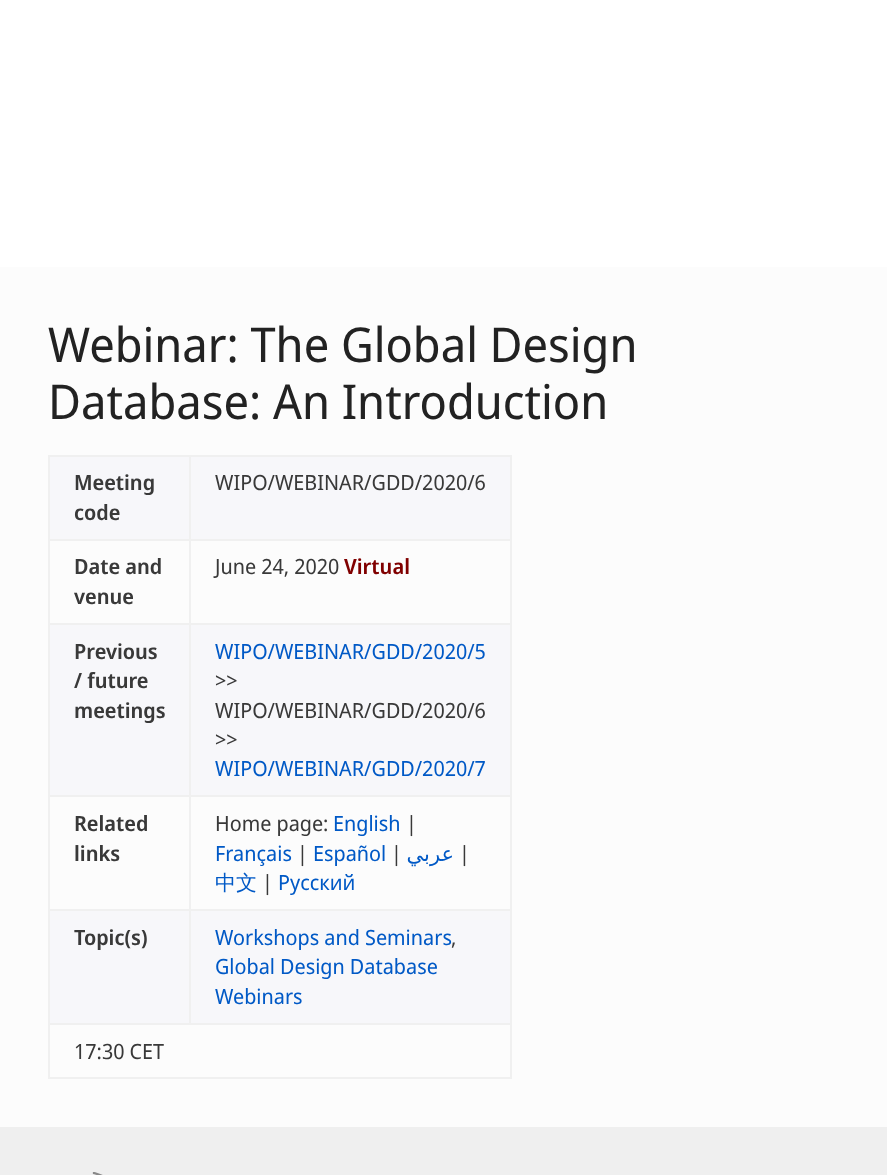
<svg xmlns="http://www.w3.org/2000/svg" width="887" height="1175">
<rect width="100%" height="100%" fill="#fcfcfc"/>
<rect width="887" height="267" fill="#fff"/>
<text x="48" y="362" style="font-family:Noto Sans Display;font-size:48px;fill:#222">Webinar: The Global Design</text>
<text x="48" y="419" style="font-family:Noto Sans Display;font-size:48px;fill:#222">Database: An Introduction</text>
<rect x="50" y="457" width="139" height="82" fill="#f7f7fa"/>
<rect x="189" y="455" width="323" height="2" fill="#f0f0f0"/>
<rect x="189" y="539" width="323" height="2" fill="#f0f0f0"/>
<rect x="189" y="623" width="323" height="2" fill="#f0f0f0"/>
<rect x="189" y="795" width="323" height="2" fill="#f0f0f0"/>
<rect x="189" y="909" width="323" height="2" fill="#f0f0f0"/>
<rect x="48" y="1023" width="464" height="2" fill="#f0f0f0"/>
<rect x="189" y="909" width="2" height="116" fill="#f0f0f0"/>
<rect x="48" y="909" width="143" height="2" fill="#f0f0f0"/>
<rect x="189" y="795" width="2" height="116" fill="#f0f0f0"/>
<rect x="48" y="795" width="143" height="2" fill="#f0f0f0"/>
<rect x="189" y="623" width="2" height="174" fill="#f0f0f0"/>
<rect x="48" y="623" width="143" height="2" fill="#f0f0f0"/>
<rect x="189" y="539" width="2" height="85" fill="#f0f0f0"/>
<rect x="48" y="539" width="143" height="2" fill="#f0f0f0"/>
<rect x="189" y="455" width="2" height="85" fill="#f0f0f0"/>
<rect x="48" y="455" width="143" height="2" fill="#f0f0f0"/>
<rect x="510" y="1023" width="2" height="56" fill="#f0f0f0"/>
<rect x="48" y="1077" width="464" height="2" fill="#f0f0f0"/>
<rect x="48" y="1023" width="2" height="56" fill="#f0f0f0"/>
<rect x="48" y="909" width="2" height="116" fill="#f0f0f0"/>
<rect x="48" y="795" width="2" height="116" fill="#f0f0f0"/>
<rect x="48" y="623" width="2" height="174" fill="#f0f0f0"/>
<rect x="48" y="539" width="2" height="85" fill="#f0f0f0"/>
<rect x="48" y="455" width="2" height="85" fill="#f0f0f0"/>
<text x="74" y="490" style="font-family:Noto Sans Display;font-size:21px;font-weight:600;fill:#393939">Meeting</text>
<text x="74" y="520" style="font-family:Noto Sans Display;font-size:21px;font-weight:600;fill:#393939">code</text>
<rect x="191" y="457" width="319" height="82" fill="#f7f7fa"/>
<rect x="510" y="909" width="2" height="116" fill="#f0f0f0"/>
<rect x="510" y="795" width="2" height="116" fill="#f0f0f0"/>
<rect x="510" y="623" width="2" height="174" fill="#f0f0f0"/>
<rect x="510" y="539" width="2" height="85" fill="#f0f0f0"/>
<rect x="510" y="455" width="2" height="85" fill="#f0f0f0"/>
<text x="215" y="490" style="font-family:Noto Sans Display;font-size:21px;fill:#393939">WIPO/WEBINAR/GDD/2020/6</text>
<text x="74" y="574" style="font-family:Noto Sans Display;font-size:21px;font-weight:600;fill:#393939">Date and</text>
<text x="74" y="604" style="font-family:Noto Sans Display;font-size:21px;font-weight:600;fill:#393939">venue</text>
<text x="215" y="574" style="font-family:Noto Sans Display;font-size:21px;fill:#393939">June 24, 2020</text>
<text x="344" y="574" style="font-family:Noto Sans Display;font-size:21px;font-weight:600;fill:#800000">Virtual</text>
<rect x="50" y="625" width="139" height="170" fill="#f7f7fa"/>
<text x="74" y="659" style="font-family:Noto Sans Display;font-size:21px;font-weight:600;fill:#393939">Previous</text>
<text x="74" y="688" style="font-family:Noto Sans Display;font-size:21px;font-weight:600;fill:#393939">/ future</text>
<text x="74" y="718" style="font-family:Noto Sans Display;font-size:21px;font-weight:600;fill:#393939">meetings</text>
<rect x="191" y="625" width="319" height="170" fill="#f7f7fa"/>
<text x="215" y="659" style="font-family:Noto Sans Display;font-size:21px;fill:#0059c6">WIPO/WEBINAR/GDD/2020/5</text>
<text x="215" y="688" style="font-family:Noto Sans Display;font-size:21px;fill:#393939">&gt;&gt;</text>
<text x="215" y="718" style="font-family:Noto Sans Display;font-size:21px;fill:#393939">WIPO/WEBINAR/GDD/2020/6</text>
<text x="215" y="747" style="font-family:Noto Sans Display;font-size:21px;fill:#393939">&gt;&gt;</text>
<text x="215" y="776" style="font-family:Noto Sans Display;font-size:21px;fill:#0059c6">WIPO/WEBINAR/GDD/2020/7</text>
<text x="74" y="831" style="font-family:Noto Sans Display;font-size:21px;font-weight:600;fill:#393939">Related</text>
<text x="74" y="861" style="font-family:Noto Sans Display;font-size:21px;font-weight:600;fill:#393939">links</text>
<text x="215" y="831" style="font-family:Noto Sans Display;font-size:21px;fill:#393939">Home page:</text>
<text x="333" y="831" style="font-family:Noto Sans Display;font-size:21px;fill:#0059c6">English</text>
<text x="406" y="831" style="font-family:Noto Sans Display;font-size:21px;fill:#393939">|</text>
<text x="215" y="861" style="font-family:Noto Sans Display;font-size:21px;fill:#0059c6">Français</text>
<text x="297" y="861" style="font-family:Noto Sans Display;font-size:21px;fill:#393939">|</text>
<text x="313" y="861" style="font-family:Noto Sans Display;font-size:21px;fill:#0059c6">Español</text>
<text x="391" y="861" style="font-family:Noto Sans Display;font-size:21px;fill:#393939">|</text>
<text x="454" y="861" style="font-family:DejaVu Sans;font-size:21px;direction:rtl;fill:#0059c6">عربي</text>
<text x="459" y="861" style="font-family:Noto Sans Display;font-size:21px;fill:#393939">|</text>
<text x="215" y="890" style="font-family:WenQuanYi Zen Hei;font-size:21px;font-weight:500;fill:#0059c6">中文</text>
<text x="262" y="890" style="font-family:Noto Sans Display;font-size:21px;fill:#393939">|</text>
<text x="278" y="890" style="font-family:Noto Sans Display;font-size:21px;fill:#0059c6">Русский</text>
<rect x="50" y="911" width="139" height="112" fill="#f7f7fa"/>
<text x="74" y="945" style="font-family:Noto Sans Display;font-size:21px;font-weight:600;fill:#393939">Topic(s)</text>
<rect x="191" y="911" width="319" height="112" fill="#f7f7fa"/>
<text x="215" y="945" style="font-family:Noto Sans Display;font-size:21px;fill:#0059c6">Workshops and Seminars</text>
<text x="451" y="945" style="font-family:Noto Sans Display;font-size:21px;fill:#393939">,</text>
<text x="215" y="974" style="font-family:Noto Sans Display;font-size:21px;fill:#0059c6">Global Design Database</text>
<text x="215" y="1004" style="font-family:Noto Sans Display;font-size:21px;fill:#0059c6">Webinars</text>
<text x="74" y="1059" style="font-family:Noto Sans Display;font-size:21px;fill:#393939">17:30 CET</text>
<rect y="1127" width="887" height="48" fill="#efefef"/>
<image x="92" y="1172" width="11" height="3" href="media/1.png"/>
</svg>
